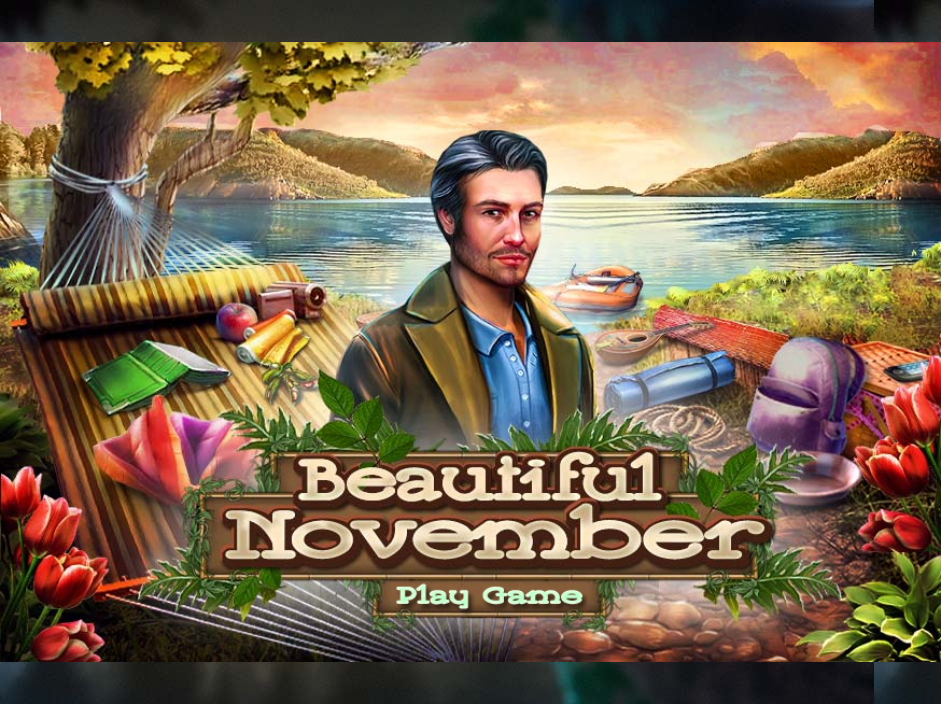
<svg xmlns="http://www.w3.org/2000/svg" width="941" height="704">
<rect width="100%" height="100%" fill="#fff"/>
<image x="0" y="0" width="941" height="704" href="media/1.png"/>
<image x="0" y="42" width="941" height="620" href="media/2.png"/>
</svg>
